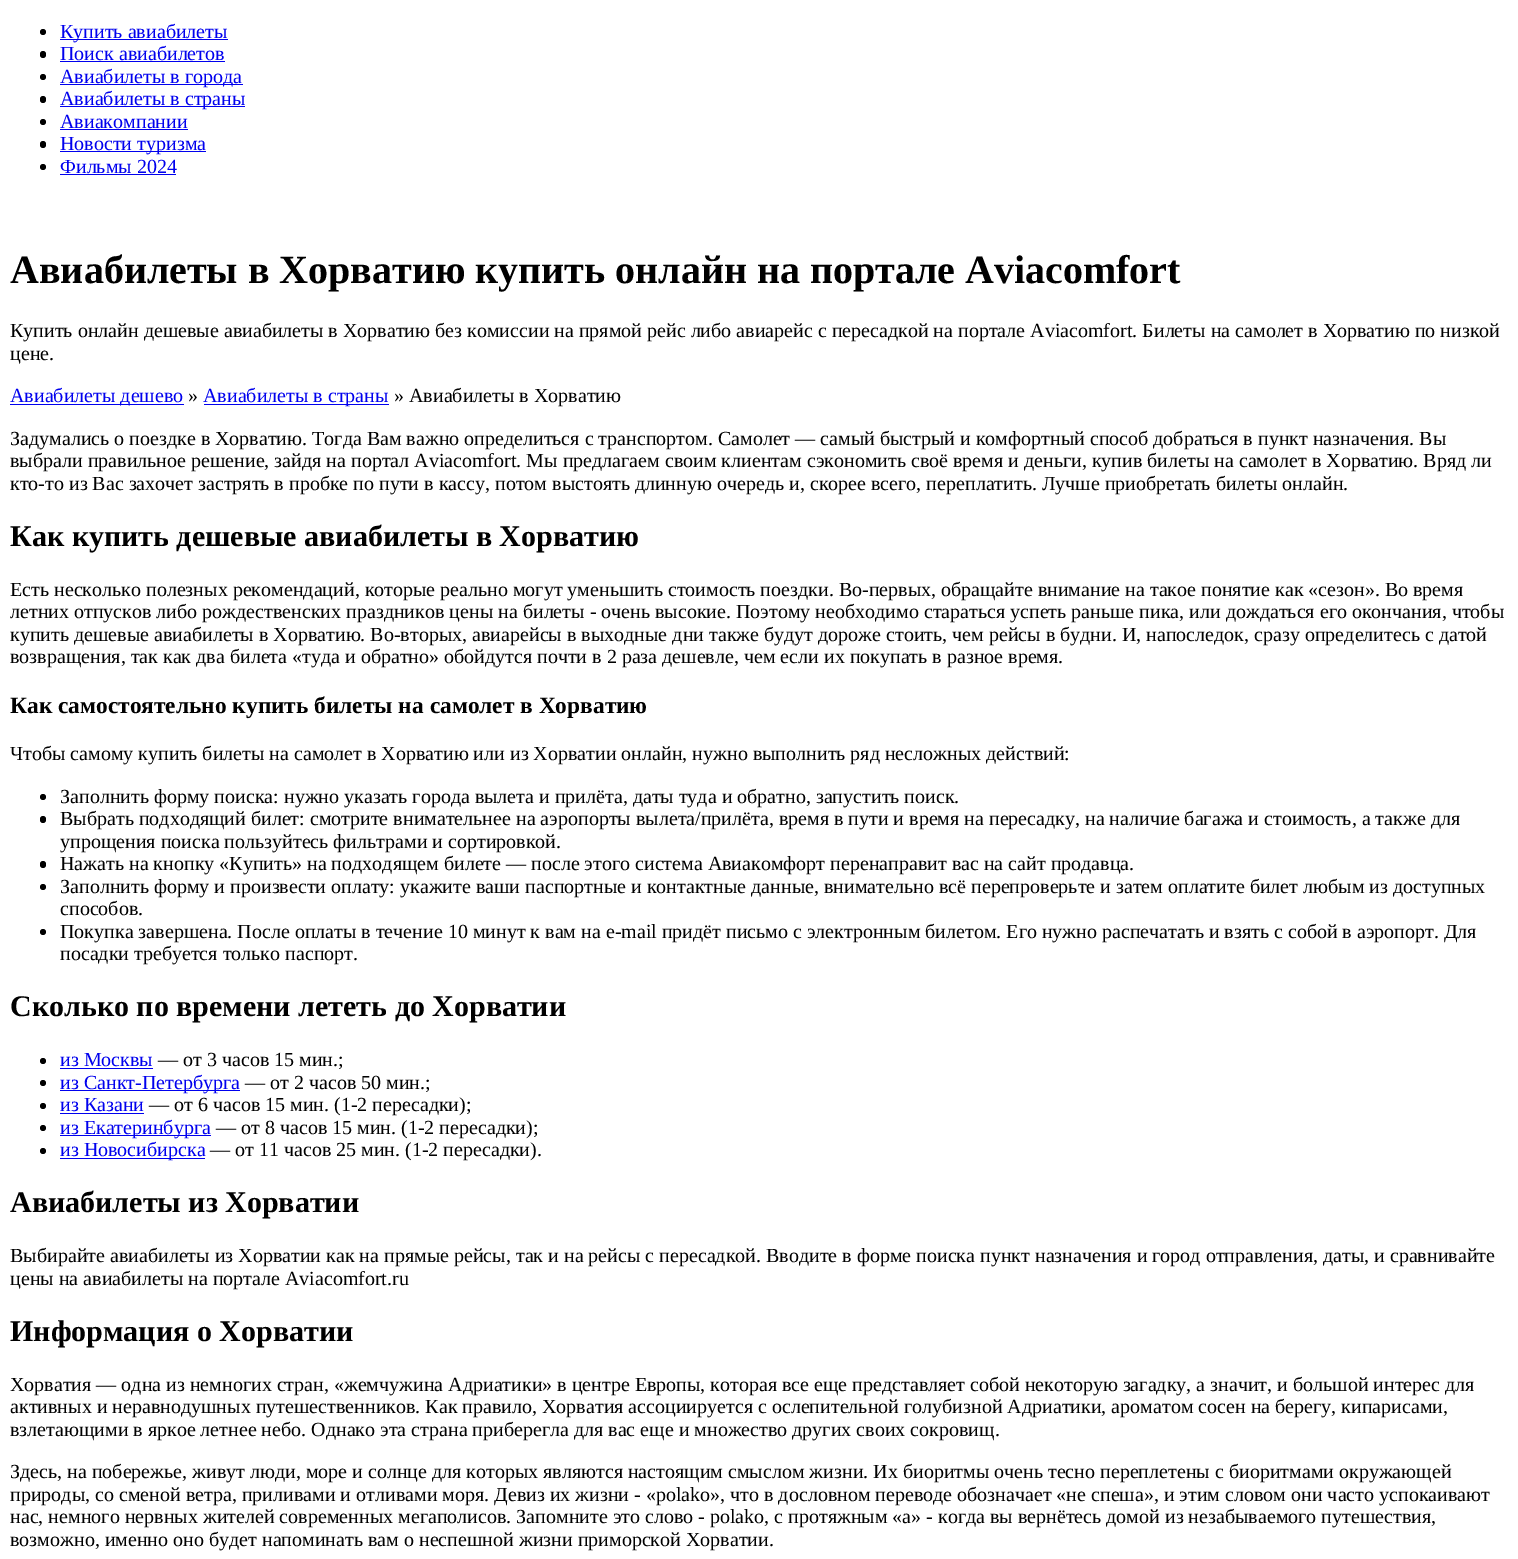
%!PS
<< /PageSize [1518 1559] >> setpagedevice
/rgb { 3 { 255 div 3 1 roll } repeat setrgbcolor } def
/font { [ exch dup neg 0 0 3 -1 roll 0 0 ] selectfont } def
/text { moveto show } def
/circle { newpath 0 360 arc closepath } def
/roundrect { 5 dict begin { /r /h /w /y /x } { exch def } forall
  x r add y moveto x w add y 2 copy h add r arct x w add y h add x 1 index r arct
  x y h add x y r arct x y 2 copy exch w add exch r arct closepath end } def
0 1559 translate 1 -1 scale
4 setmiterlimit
255 255 255 rgb
0 0 1518 1559 rectfill
0 0 0 rgb
43 32 3 circle fill
0 0 238 rgb
60 39 168 1 rectfill
0 0 0 rgb
40 51 6 7 3 roundrect fill
0 0 238 rgb
60 61 165 1 rectfill
0 0 0 rgb
43 77 3 circle fill
0 0 238 rgb
60 84 183 1 rectfill
0 0 0 rgb
40 96 6 7 3 roundrect fill
0 0 238 rgb
60 106 185 1 rectfill
0 0 0 rgb
43 122 3 circle fill
0 0 238 rgb
60 129 128 1 rectfill
0 0 0 rgb
40 141 6 7 3 roundrect fill
0 0 238 rgb
60 151 146 1 rectfill
0 0 0 rgb
43 167 3 circle fill
0 0 238 rgb
60 174 116 1 rectfill
10 404 174 1 rectfill
204 404 185 1 rectfill
0 0 0 rgb
43 797 3 circle fill
40 816 6 7 3 roundrect fill
40 861 6 7 3 roundrect fill
43 887 3 circle fill
43 932 3 circle fill
43 1061 3 circle fill
0 0 238 rgb
60 1068 93 1 rectfill
0 0 0 rgb
43 1083 3 circle fill
0 0 238 rgb
60 1090 180 1 rectfill
0 0 0 rgb
43 1106 3 circle fill
0 0 238 rgb
60 1113 84 1 rectfill
0 0 0 rgb
43 1128 3 circle fill
0 0 238 rgb
60 1135 151 1 rectfill
0 0 0 rgb
43 1151 3 circle fill
0 0 238 rgb
60 1158 145 1 rectfill
/LiberationSerif-Regular 20 font
(Купить авиабилеты) 60 38 text
(Поиск авиабилетов) 60 60 text
(Авиабилеты в города) 60 83 text
(Авиабилеты в страны) 60 105 text
(Авиакомпании) 60 128 text
(Новости туризма) 60 150 text
(Фильмы 2024) 60 173 text
/LiberationSerif-Bold 40 font
0 0 0 rgb
(Авиабилеты в Хорватию купить онлайн на портале Aviacomfort) 10 283 text
/LiberationSerif-Regular 20 font
(Купить онлайн дешевые авиабилеты в Хорватию без комиссии на прямой рейс либо авиарейс с пересадкой на портале Aviacomfort. Билеты на самолет в Хорватию по низкой) 10 337 text
(цене.) 10 360 text
0 0 238 rgb
(Авиабилеты дешево) 10 402 text
0 0 0 rgb
(») 188 402 text
0 0 238 rgb
(Авиабилеты в страны) 203 402 text
0 0 0 rgb
(» Авиабилеты в Хорватию) 394 402 text
(Задумались о поездке в Хорватию. Тогда Вам важно определиться с транспортом. Самолет — самый быстрый и комфортный способ добраться в пункт назначения. Вы) 10 445 text
(выбрали правильное решение, зайдя на портал Aviacomfort. Мы предлагаем своим клиентам сэкономить своё время и деньги, купив билеты на самолет в Хорватию. Вряд ли) 10 467 text
(кто-то из Вас захочет застрять в пробке по пути в кассу, потом выстоять длинную очередь и, скорее всего, переплатить. Лучше приобретать билеты онлайн.) 10 490 text
/LiberationSerif-Bold 30 font
(Как купить дешевые авиабилеты в Хорватию) 10 546 text
/LiberationSerif-Regular 20 font
(Есть несколько полезных рекомендаций, которые реально могут уменьшить стоимость поездки. Во-первых, обращайте внимание на такое понятие как «сезон». Во время) 10 596 text
(летних отпусков либо рождественских праздников цены на билеты - очень высокие. Поэтому необходимо стараться успеть раньше пика, или дождаться его окончания, чтобы) 10 618 text
(купить дешевые авиабилеты в Хорватию. Во-вторых, авиарейсы в выходные дни также будут дороже стоить, чем рейсы в будни. И, напоследок, сразу определитесь с датой) 10 641 text
(возвращения, так как два билета «туда и обратно» обойдутся почти в 2 раза дешевле, чем если их покупать в разное время.) 10 663 text
/LiberationSerif-Bold 23.4 font
(Как самостоятельно купить билеты на самолет в Хорватию) 10 713 text
/LiberationSerif-Regular 20 font
(Чтобы самому купить билеты на самолет в Хорватию или из Хорватии онлайн, нужно выполнить ряд несложных действий:) 10 760 text
(Заполнить форму поиска: нужно указать города вылета и прилёта, даты туда и обратно, запустить поиск.) 60 803 text
(Выбрать подходящий билет: смотрите внимательнее на аэропорты вылета/прилёта, время в пути и время на пересадку, на наличие багажа и стоимость, а также для) 60 825 text
(упрощения поиска пользуйтесь фильтрами и сортировкой.) 60 848 text
(Нажать на кнопку «Купить» на подходящем билете — после этого система Авиакомфорт перенаправит вас на сайт продавца.) 60 870 text
(Заполнить форму и произвести оплату: укажите ваши паспортные и контактные данные, внимательно всё перепроверьте и затем оплатите билет любым из доступных) 60 893 text
(способов.) 60 915 text
(Покупка завершена. После оплаты в течение 10 минут к вам на e-mail придёт письмо с электронным билетом. Его нужно распечатать и взять с собой в аэропорт. Для) 60 938 text
(посадки требуется только паспорт.) 60 960 text
/LiberationSerif-Bold 30 font
(Сколько по времени лететь до Хорватии) 10 1016 text
/LiberationSerif-Regular 20 font
0 0 238 rgb
(из Москвы) 60 1066 text
0 0 0 rgb
(— от 3 часов 15 мин.;) 158 1066 text
0 0 238 rgb
(из Санкт-Петербурга) 60 1089 text
0 0 0 rgb
(— от 2 часов 50 мин.;) 245 1089 text
0 0 238 rgb
(из Казани) 60 1111 text
0 0 0 rgb
(— от 6 часов 15 мин. \(1-2 пересадки\);) 149 1111 text
0 0 238 rgb
(из Екатеринбурга) 60 1134 text
0 0 0 rgb
(— от 8 часов 15 мин. \(1-2 пересадки\);) 216 1134 text
0 0 238 rgb
(из Новосибирска) 60 1156 text
0 0 0 rgb
(— от 11 часов 25 мин. \(1-2 пересадки\).) 210 1156 text
/LiberationSerif-Bold 30 font
(Авиабилеты из Хорватии) 10 1212 text
/LiberationSerif-Regular 20 font
(Выбирайте авиабилеты из Хорватии как на прямые рейсы, так и на рейсы с пересадкой. Вводите в форме поиска пункт назначения и город отправления, даты, и сравнивайте) 10 1262 text
(цены на авиабилеты на портале Aviacomfort.ru) 10 1285 text
/LiberationSerif-Bold 30 font
(Информация о Хорватии) 10 1341 text
/LiberationSerif-Regular 20 font
(Хорватия — одна из немногих стран, «жемчужина Адриатики» в центре Европы, которая все еще представляет собой некоторую загадку, а значит, и большой интерес для) 10 1391 text
(активных и неравнодушных путешественников. Как правило, Хорватия ассоциируется с ослепительной голубизной Адриатики, ароматом сосен на берегу, кипарисами,) 10 1413 text
(взлетающими в яркое летнее небо. Однако эта страна приберегла для вас еще и множество других своих сокровищ.) 10 1436 text
(Здесь, на побережье, живут люди, море и солнце для которых являются настоящим смыслом жизни. Их биоритмы очень тесно переплетены с биоритмами окружающей) 10 1478 text
(природы, со сменой ветра, приливами и отливами моря. Девиз их жизни - «polako», что в дословном переводе обозначает «не спеша», и этим словом они часто успокаивают) 10 1501 text
(нас, немного нервных жителей современных мегаполисов. Запомните это слово - polako, с протяжным «а» - когда вы вернётесь домой из незабываемого путешествия,) 10 1523 text
(возможно, именно оно будет напоминать вам о неспешной жизни приморской Хорватии.) 10 1546 text
showpage
